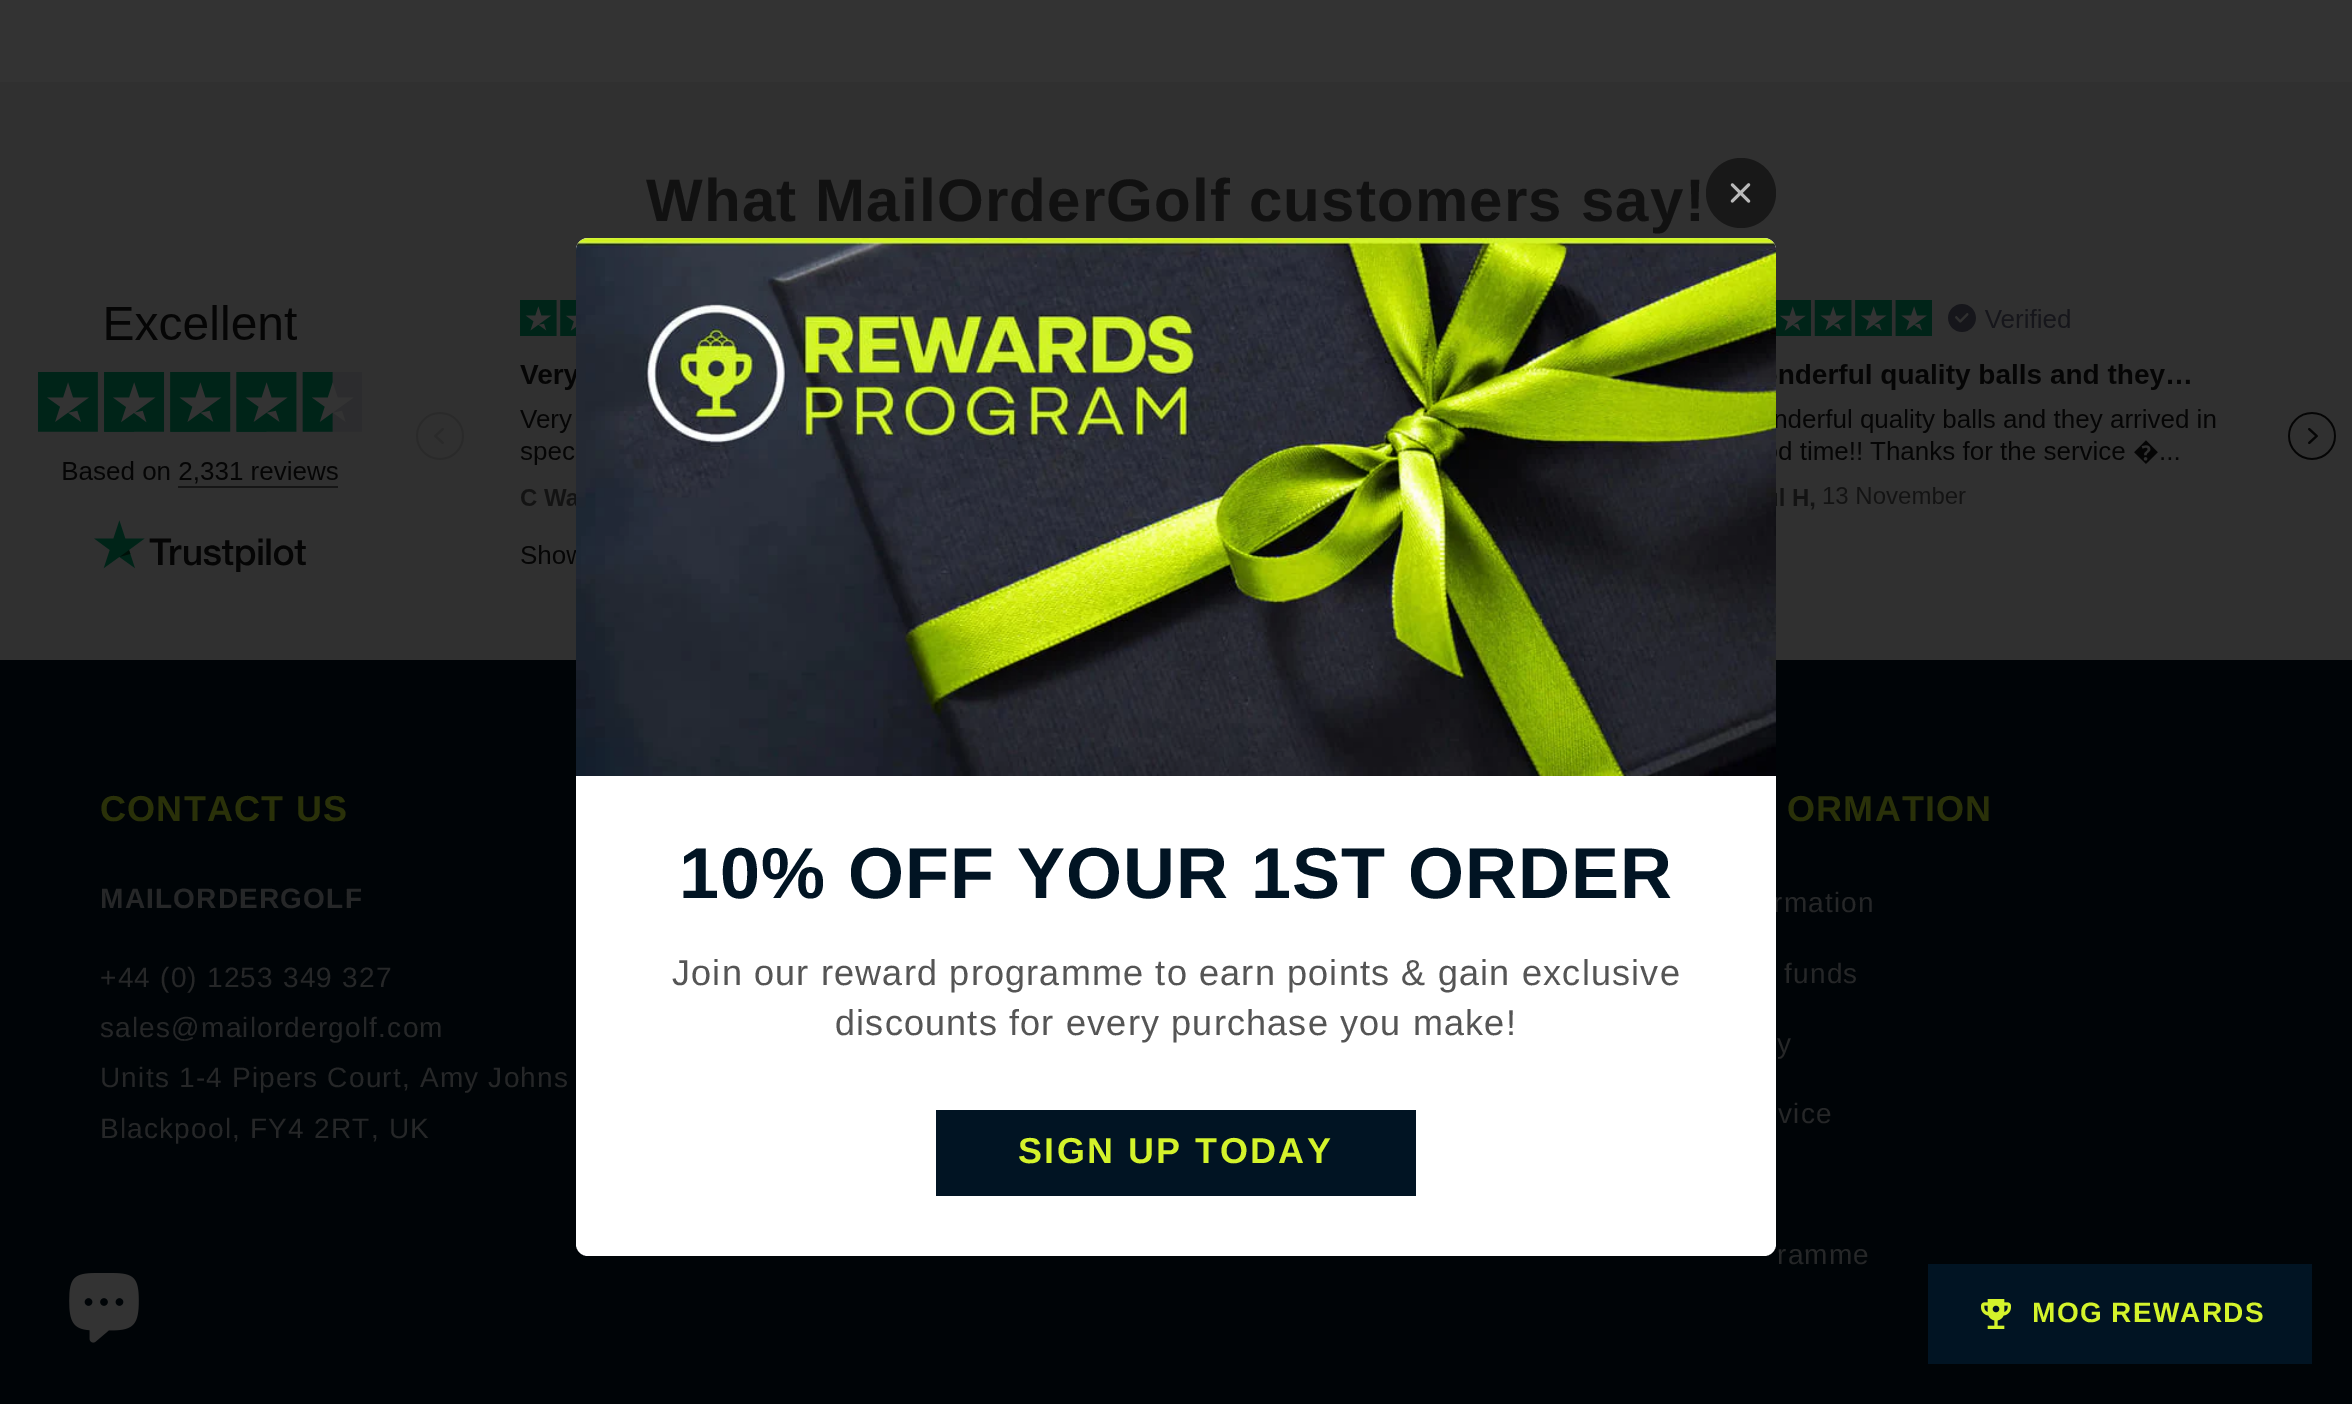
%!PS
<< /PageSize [2352 1404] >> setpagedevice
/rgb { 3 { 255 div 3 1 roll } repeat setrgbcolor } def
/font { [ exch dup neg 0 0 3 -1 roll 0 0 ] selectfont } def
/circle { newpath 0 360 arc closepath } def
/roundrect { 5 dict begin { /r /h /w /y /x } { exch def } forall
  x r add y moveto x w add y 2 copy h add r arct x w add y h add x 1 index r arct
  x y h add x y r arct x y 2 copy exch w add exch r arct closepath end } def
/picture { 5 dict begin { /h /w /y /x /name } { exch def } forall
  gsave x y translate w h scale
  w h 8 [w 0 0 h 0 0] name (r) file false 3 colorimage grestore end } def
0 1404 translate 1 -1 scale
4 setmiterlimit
51 51 51 rgb
0 0 2352 1404 rectfill
48 48 48 rgb
0 82 2352 578 rectfill
(img_01.rgb) 38 300 2298 272 picture
0 4 7 rgb
0 660 2352 744 rectfill
24 24 24 rgb
1741 193 35 circle fill
(img_02.rgb) 1730 183 21 20 picture
(img_04.rgb) 69 1273 70 70 picture
1 20 35 rgb
1928 1264 384 100 rectfill
(img_05.rgb) 1981 1299 30 30 picture
/LiberationSans-Bold 60 font
17 17 17 rgb
646 221 moveto 1.2 0 (What MailOrderGolf customers say!) ashow
/LiberationSans-Bold 36 font
42 49 9 rgb
100 821 moveto 1.2 0 (CONTACT US) ashow
/LiberationSans-Bold 28 font
38 39 40 rgb
100 908 moveto 1.2 0 (MAILORDERGOLF) ashow
/LiberationSans-Regular 28 font
100 987 moveto 1.2 0 (+44 \(0\) 1253 349 327) ashow
100 1037 moveto 1.2 0 (sales@mailordergolf.com) ashow
100 1087 moveto 1.2 0 (Units 1-4 Pipers Court, Amy Johns) ashow
100 1138 moveto 1.2 0 (Blackpool, FY4 2RT, UK) ashow
/LiberationSans-Bold 36 font
42 49 9 rgb
1787 821 moveto 1.2 0 (ORMATION) ashow
/LiberationSans-Regular 28 font
38 39 40 rgb
1773 912 moveto 1.2 0 (rmation) ashow
1784 983 moveto 1.2 0 (funds) ashow
1777 1053 moveto 1.2 0 (y) ashow
1778 1123 moveto 1.2 0 (vice) ashow
1777 1264 moveto 1.2 0 (ramme) ashow
255 255 255 rgb
576 238 1200 1018 12 roundrect fill
(img_03.rgb) 576 238 1200 538 picture
/LiberationSans-Bold 72 font
1 20 35 rgb
679 898 moveto 1.2 0 (10% OFF YOUR 1ST ORDER) ashow
/LiberationSans-Regular 36 font
85 85 85 rgb
672 985 moveto 1.2 0 (Join our reward programme to earn points & gain exclusive) ashow
835 1035 moveto 1.2 0 (discounts for every purchase you make!) ashow
1 20 35 rgb
936 1110 480 86 rectfill
/LiberationSans-Bold 36 font
212 243 43 rgb
1018 1163 moveto 2.4 0 (SIGN UP TODAY) ashow
/LiberationSans-Bold 28 font
2032 1322 moveto 1.2 0 (MOG REWARDS) ashow
showpage
